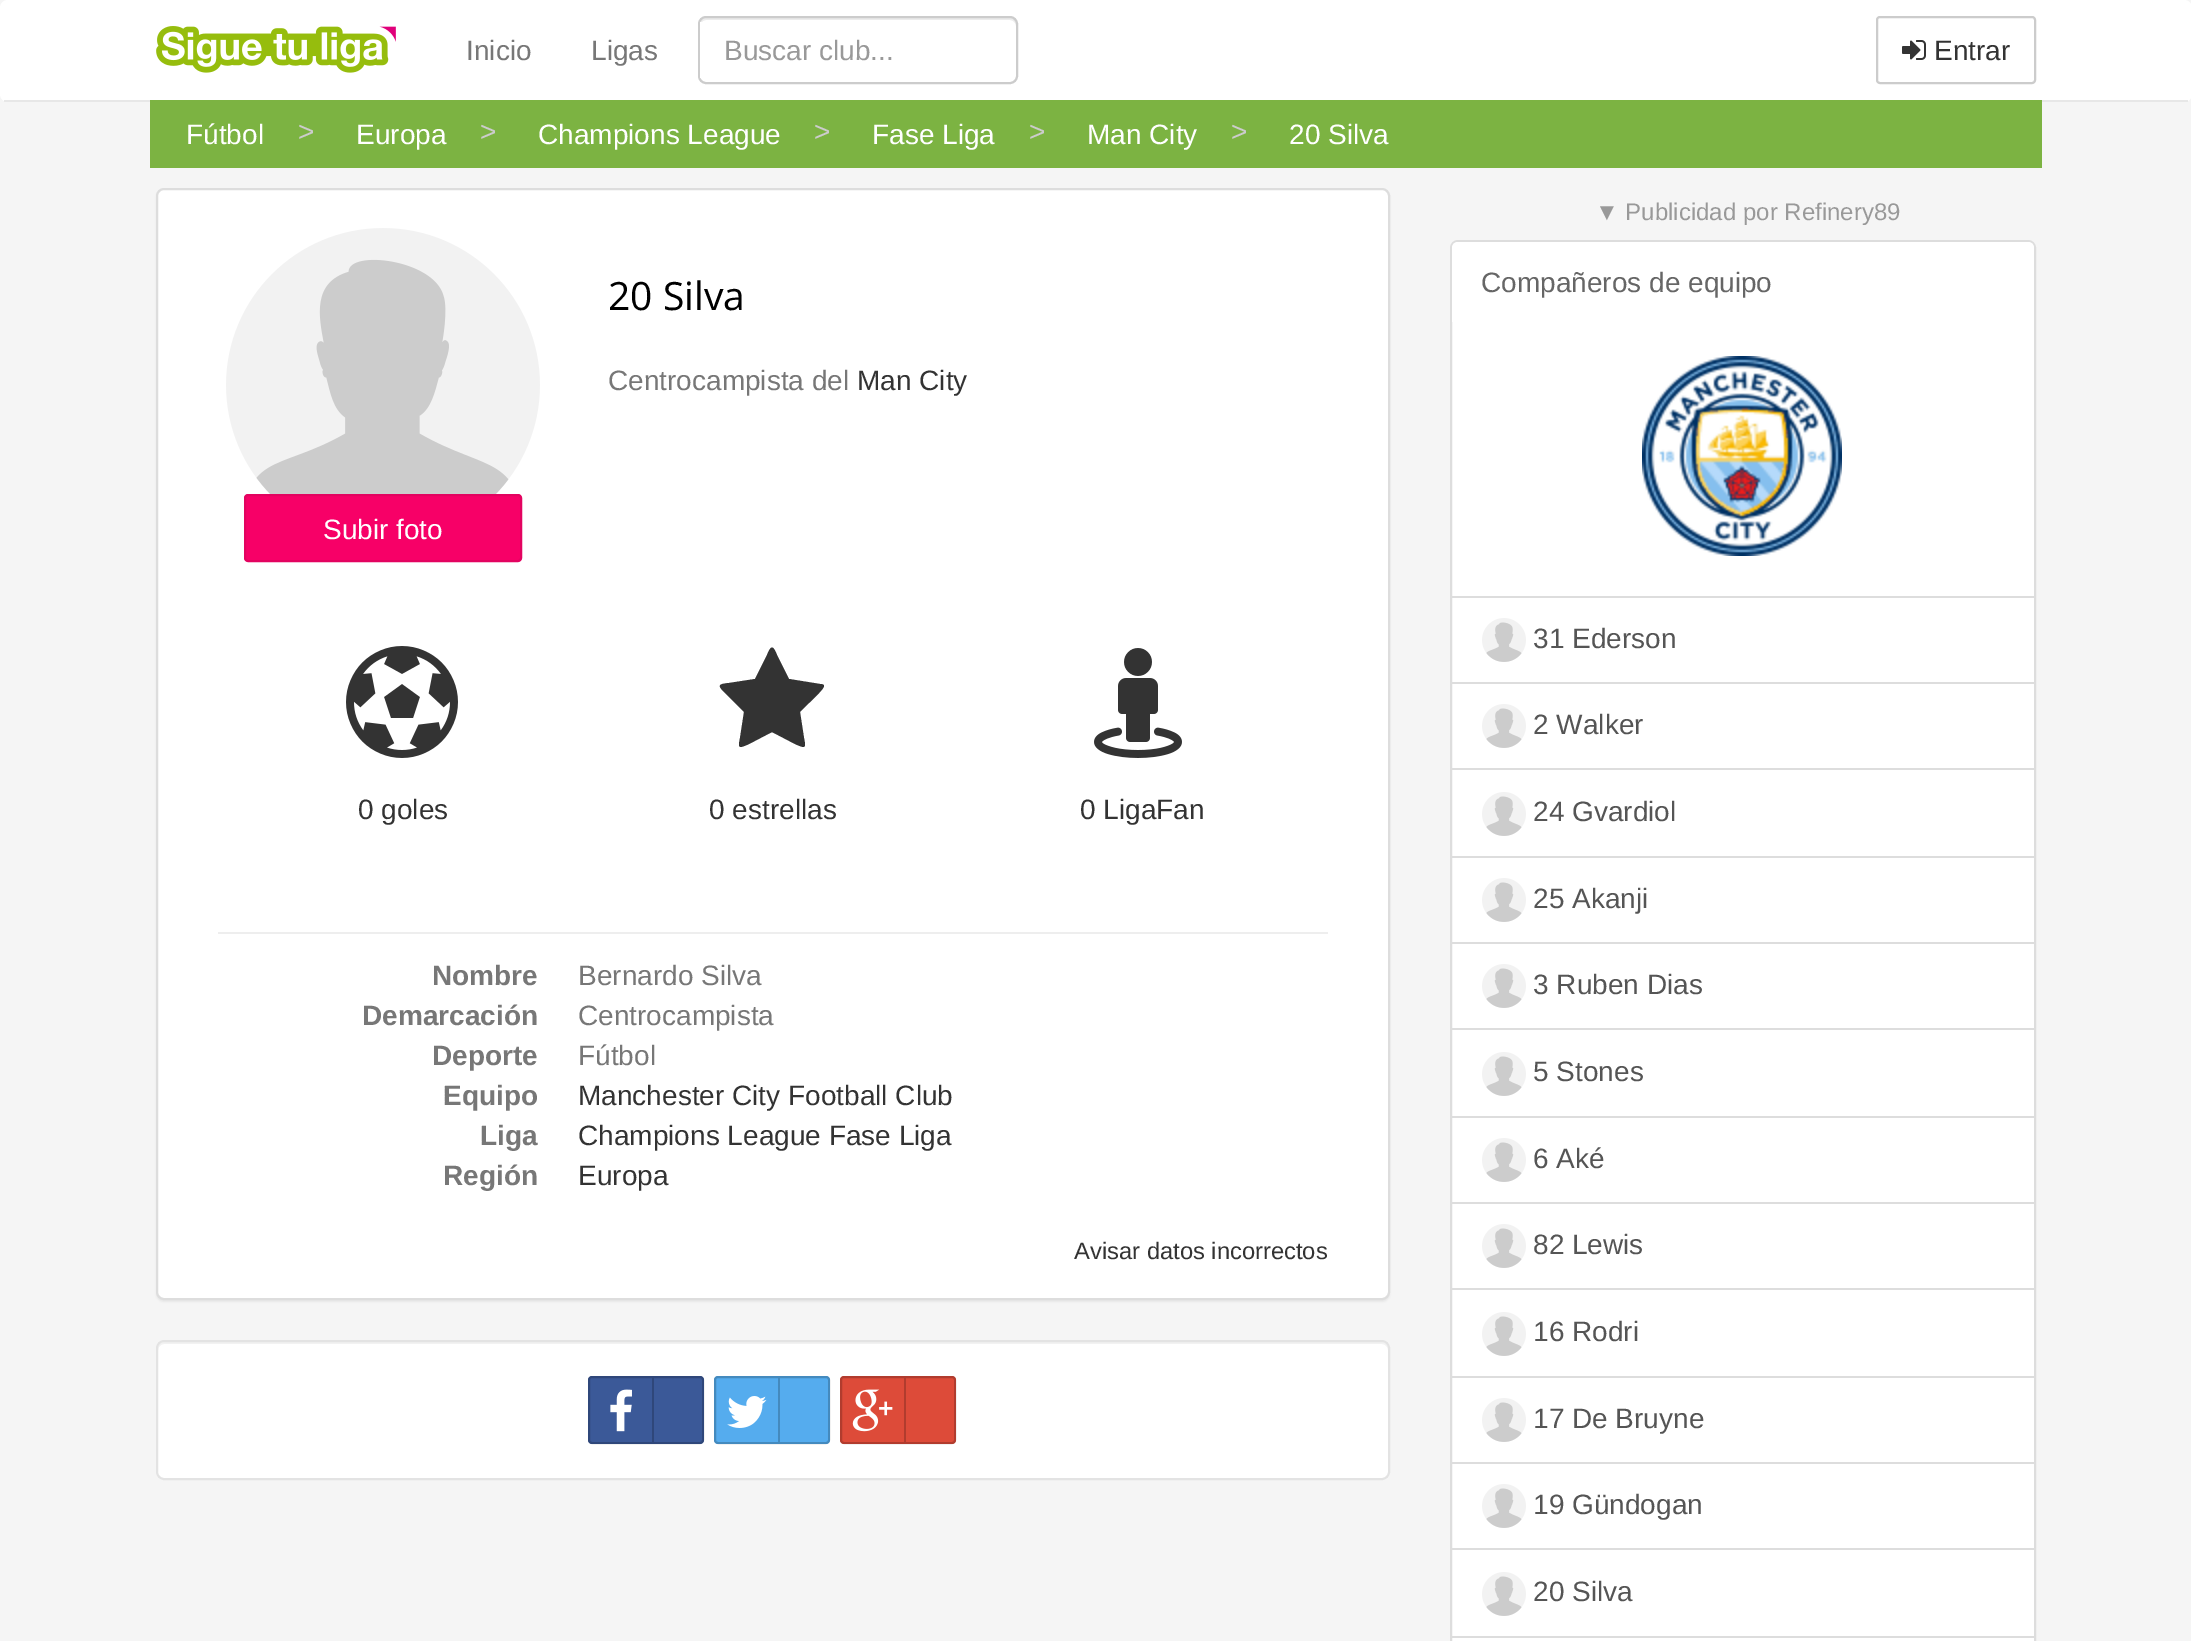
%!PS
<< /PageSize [2191 1641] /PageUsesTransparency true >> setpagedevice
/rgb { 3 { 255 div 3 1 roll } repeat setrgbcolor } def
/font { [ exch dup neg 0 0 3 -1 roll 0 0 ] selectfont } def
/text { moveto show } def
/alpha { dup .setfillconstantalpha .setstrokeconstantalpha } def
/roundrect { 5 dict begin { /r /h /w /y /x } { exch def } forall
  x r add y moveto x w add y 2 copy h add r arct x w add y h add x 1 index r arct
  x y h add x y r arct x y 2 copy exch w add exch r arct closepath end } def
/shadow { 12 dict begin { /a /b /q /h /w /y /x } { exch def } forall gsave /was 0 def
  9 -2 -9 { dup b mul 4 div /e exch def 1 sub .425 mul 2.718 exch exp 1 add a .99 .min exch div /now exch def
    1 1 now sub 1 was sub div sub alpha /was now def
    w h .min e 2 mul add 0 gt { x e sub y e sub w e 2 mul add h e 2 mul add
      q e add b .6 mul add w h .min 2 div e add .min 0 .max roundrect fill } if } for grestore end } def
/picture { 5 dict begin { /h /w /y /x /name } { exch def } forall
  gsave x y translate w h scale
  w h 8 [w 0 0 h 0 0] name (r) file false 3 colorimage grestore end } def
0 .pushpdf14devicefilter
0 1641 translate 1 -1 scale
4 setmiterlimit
245 245 245 rgb
0 0 2191 1641 rectfill
255 255 255 rgb
0 0 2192 102 8 roundrect fill
231 231 231 rgb
4 100 2184 2 rectfill
(img_01.rgb) 156 26 240 47 picture
236 236 236 rgb
706 20 moveto 304 0 rlineto 3 0 6 3 6 6 rcurveto 0 -4 -1 -8 -6 -8 rcurveto -305 0 rlineto -4 1 -5 5 -5 8 rcurveto 0 -3 3 -6 6 -6 rcurveto closepath fill
204 204 204 rgb
2 setlinewidth
699 17 318 66 7 roundrect stroke
255 255 255 rgb
700 22 2 56 rectfill
204 204 204 rgb
1877 17 158 66 3 roundrect stroke
(img_02.rgb) 1902 40 24 20 picture
124 179 66 rgb
150 100 1892 68 rectfill
0 0 0 rgb
156 190 1234 1112 8 1 0.05 shadow
255 255 255 rgb
157 189 1232 1110 7 roundrect gsave fill grestore
221 221 221 rgb
stroke
(img_03.rgb) 226 228 314 266 picture
247 0 103 rgb
245 495 276 66 3 roundrect gsave fill grestore
227 3 96 rgb
stroke
(img_04.rgb) 346 646 112 112 picture
51 51 51 rgb
824 686 moveto 0 4 -21 22 -24 26 rcurveto 4 26 rlineto 2 10 2 11 -9 6 rcurveto -23 -12 rlineto -23 12 rlineto -11 5 -11 4 -9 -6 rcurveto 4 -26 rlineto -19 -19 rlineto -7 -7 -8 -9 4 -10 rcurveto 26 -4 rlineto 12 -24 rlineto 4 -10 6 -10 10 0 rcurveto 12 24 rlineto 31 5 rlineto 3 0 4 1 4 2 rcurveto closepath fill
(img_05.rgb) 1094 648 88 110 picture
238 238 238 rgb
218 932 1110 2 rectfill
255 255 255 rgb
156 1340 1234 140 8 roundrect fill
242 242 242 rgb
164 1344 moveto 1218 0 rlineto 3 0 6 3 6 6 rcurveto 0 -2 rlineto 0 -3 -3 -6 -6 -6 rcurveto -1218 0 rlineto -3 0 -6 3 -6 6 rcurveto 0 2 rlineto 0 -3 3 -6 6 -6 rcurveto closepath fill
227 227 227 rgb
157 1341 1232 138 7 roundrect stroke
59 89 152 rgb
588 1376 116 68 4 roundrect fill
0.2 alpha
0 0 0 rgb
589 1377 114 66 3 roundrect stroke
1 alpha
47 71 122 rgb
652 1378 2 64 rectfill
(img_06.rgb) 610 1389 22 43 picture
85 172 238 rgb
714 1376 116 68 4 roundrect fill
0.2 alpha
0 0 0 rgb
715 1377 114 66 3 roundrect stroke
1 alpha
68 138 190 rgb
778 1378 2 64 rectfill
(img_07.rgb) 727 1396 40 32 picture
221 75 57 rgb
840 1376 116 68 4 roundrect fill
0.2 alpha
0 0 0 rgb
841 1377 114 66 3 roundrect stroke
1 alpha
177 60 46 rgb
904 1378 2 64 rectfill
(img_08.rgb) 852 1389 41 43 picture
255 255 255 rgb
1451 241 584 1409 7 roundrect gsave fill grestore
221 221 221 rgb
stroke
255 255 255 rgb
1458 242 moveto 570 0 rlineto 3.5 0 6 2.5 6 6 rcurveto 0 74 rlineto -582 0 rlineto 0 -74 rlineto 0 -3.5 2.5 -6 6 -6 rcurveto closepath fill
(img_09.rgb) 1642 356 200 200 picture
221 221 221 rgb
1452 596 582 2 rectfill
1452 682 582 2 rectfill
(img_10.rgb) 1482 618 44 44 picture
1452 768 582 2 rectfill
(img_10.rgb) 1482 704 44 44 picture
1452 856 582 2 rectfill
(img_10.rgb) 1482 792 44 44 picture
1452 942 582 2 rectfill
(img_10.rgb) 1482 878 44 44 picture
1452 1028 582 2 rectfill
(img_10.rgb) 1482 964 44 44 picture
1452 1116 582 2 rectfill
(img_10.rgb) 1482 1052 44 44 picture
1452 1202 582 2 rectfill
(img_10.rgb) 1482 1138 44 44 picture
1452 1288 582 2 rectfill
(img_10.rgb) 1482 1224 44 44 picture
1452 1376 582 2 rectfill
(img_10.rgb) 1482 1312 44 44 picture
1452 1462 582 2 rectfill
(img_10.rgb) 1482 1398 44 44 picture
1452 1548 582 2 rectfill
(img_10.rgb) 1482 1484 44 44 picture
1452 1636 582 2 rectfill
(img_10.rgb) 1482 1572 44 44 picture
/LiberationSans-Regular 28 font
119 119 119 rgb
(Inicio) 466 60 text
(Ligas) 591 60 text
153 153 153 rgb
(Buscar club...) 724 60 text
51 51 51 rgb
(Entrar) 1934 60 text
255 255 255 rgb
(Fútbol) 186 144 text
204 204 204 rgb
(>) 298 141 text
255 255 255 rgb
(Europa) 356 144 text
204 204 204 rgb
(>) 480 141 text
255 255 255 rgb
(Champions League) 538 144 text
204 204 204 rgb
(>) 814 141 text
255 255 255 rgb
(Fase Liga) 872 144 text
204 204 204 rgb
(>) 1029 141 text
255 255 255 rgb
(Man City) 1087 144 text
204 204 204 rgb
(>) 1231 141 text
255 255 255 rgb
(20 Silva) 1289 144 text
/OpenSans-Regular 39 font
0 0 0 rgb
(20 Silva) 608 310 text
/LiberationSans-Regular 28 font
119 119 119 rgb
(Centrocampista del) 608 390 text
51 51 51 rgb
(Man City) 857 390 text
255 255 255 rgb
(Subir foto) 323 539 text
51 51 51 rgb
(0 goles) 358 819 text
(0 estrellas) 709 819 text
(0 LigaFan) 1080 819 text
/LiberationSans-Bold 28 font
119 119 119 rgb
(Nombre) 432 985 text
/LiberationSans-Regular 28 font
(Bernardo Silva) 578 985 text
/LiberationSans-Bold 28 font
(Demarcación) 362 1025 text
/LiberationSans-Regular 28 font
(Centrocampista) 578 1025 text
/LiberationSans-Bold 28 font
(Deporte) 432 1065 text
/LiberationSans-Regular 28 font
(Fútbol) 578 1065 text
/LiberationSans-Bold 28 font
(Equipo) 443 1105 text
/LiberationSans-Regular 28 font
51 51 51 rgb
(Manchester City Football Club) 578 1105 text
/LiberationSans-Bold 28 font
119 119 119 rgb
(Liga) 480 1145 text
/LiberationSans-Regular 28 font
51 51 51 rgb
(Champions League Fase Liga) 578 1145 text
/LiberationSans-Bold 28 font
119 119 119 rgb
(Región) 443 1185 text
/LiberationSans-Regular 28 font
51 51 51 rgb
(Europa) 578 1185 text
/LiberationSans-Regular 23.75 font
(Avisar datos incorrectos) 1074 1259 text
/LiberationSans-Regular 24 font
153 153 153 rgb
(▼ Publicidad por Refinery89) 1595 220 text
/LiberationSans-Regular 28 font
102 102 102 rgb
(Compañeros de equipo) 1481 292 text
85 85 85 rgb
(31 Ederson) 1533 648 text
(2 Walker) 1533 734 text
(24 Gvardiol) 1533 821 text
(25 Akanji) 1533 908 text
(3 Ruben Dias) 1533 994 text
(5 Stones) 1533 1081 text
(6 Aké) 1533 1168 text
(82 Lewis) 1533 1254 text
(16 Rodri) 1533 1341 text
(17 De Bruyne) 1533 1428 text
(19 Gündogan) 1533 1514 text
(20 Silva) 1533 1601 text
.poppdf14devicefilter showpage
